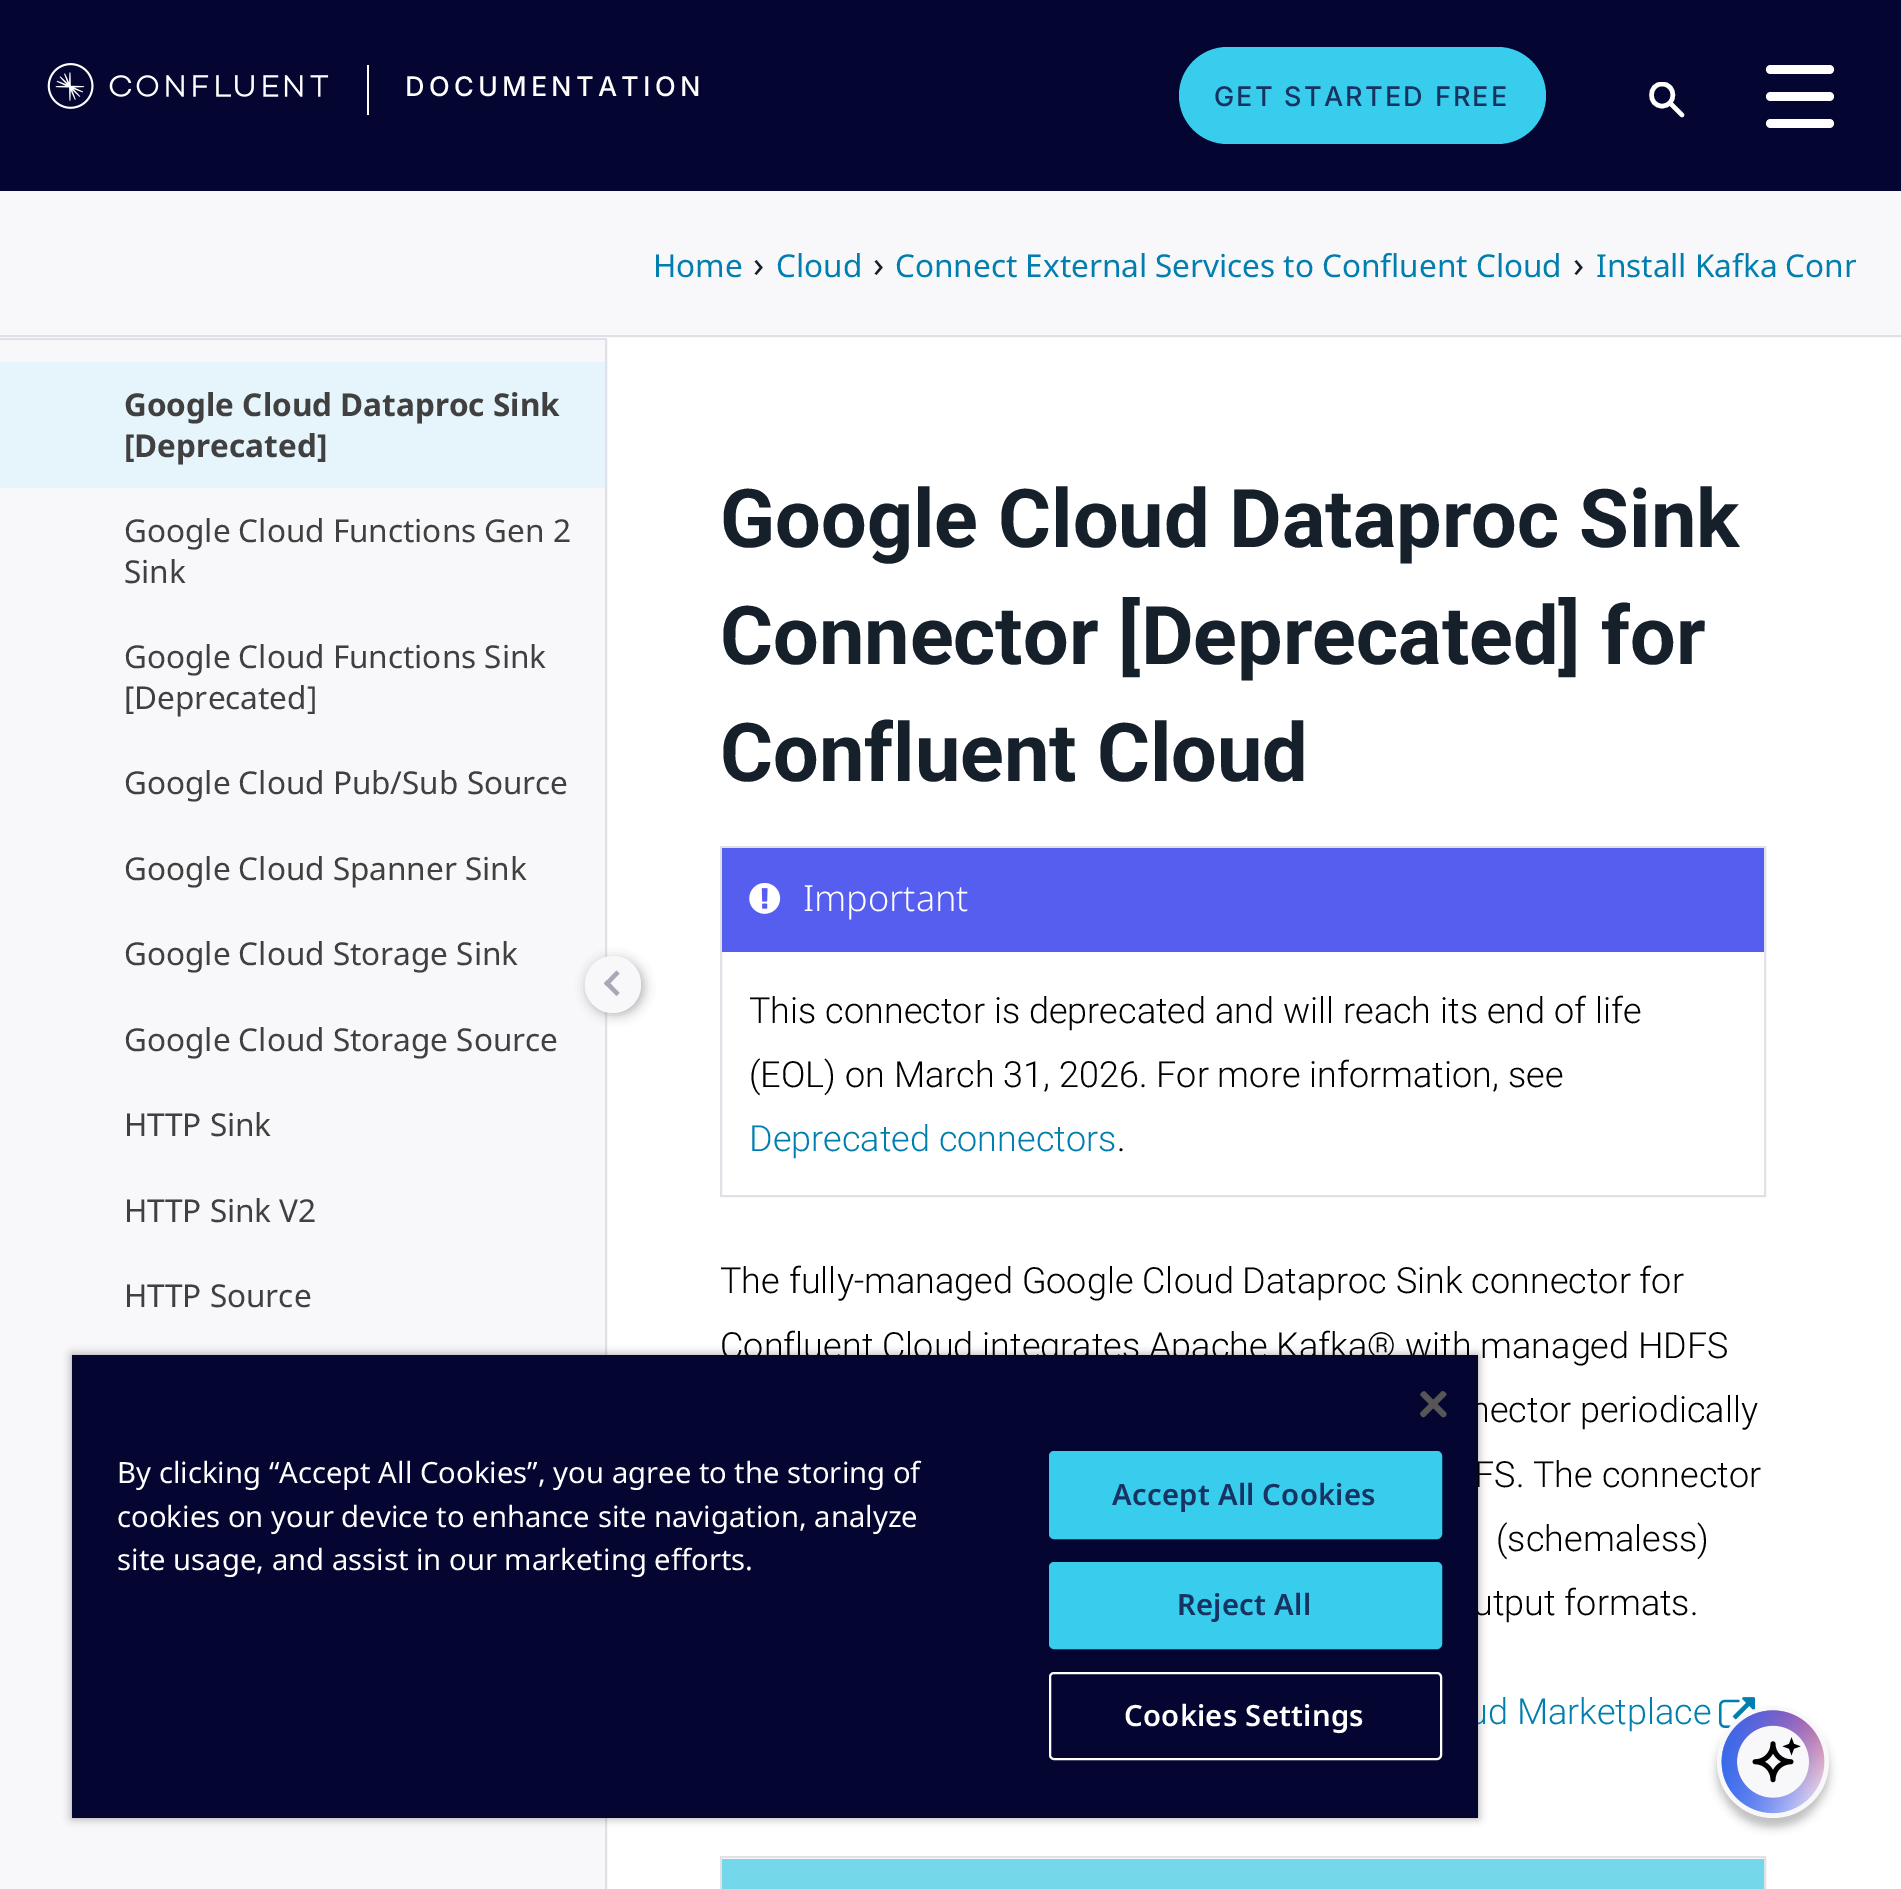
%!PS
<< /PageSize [1901 1889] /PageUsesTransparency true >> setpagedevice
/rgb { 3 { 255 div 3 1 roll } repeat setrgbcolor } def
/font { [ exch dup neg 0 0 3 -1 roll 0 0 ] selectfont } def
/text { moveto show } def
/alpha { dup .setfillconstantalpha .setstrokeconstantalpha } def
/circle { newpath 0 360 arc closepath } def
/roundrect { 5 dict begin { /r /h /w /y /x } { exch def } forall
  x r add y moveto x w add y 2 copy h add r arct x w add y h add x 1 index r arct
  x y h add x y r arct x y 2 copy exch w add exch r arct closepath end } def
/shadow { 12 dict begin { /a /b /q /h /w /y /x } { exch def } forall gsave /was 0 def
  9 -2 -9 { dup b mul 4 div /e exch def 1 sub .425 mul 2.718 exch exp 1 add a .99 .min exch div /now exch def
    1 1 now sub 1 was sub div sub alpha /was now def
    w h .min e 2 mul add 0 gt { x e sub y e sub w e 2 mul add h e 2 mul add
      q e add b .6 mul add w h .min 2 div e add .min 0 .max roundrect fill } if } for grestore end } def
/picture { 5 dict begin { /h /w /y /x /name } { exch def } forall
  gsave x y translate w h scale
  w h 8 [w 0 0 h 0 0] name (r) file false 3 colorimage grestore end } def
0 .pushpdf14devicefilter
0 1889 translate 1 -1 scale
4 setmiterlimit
4 5 49 rgb
0 0 1901 1889 rectfill
(img_01.rgb) 47 63 282 46 picture
255 255 255 rgb
367 65 2 50 rectfill
56 204 237 rgb
1179 47 367 97 48.5 roundrect fill
gsave
1649 82 36 36 rectclip
255 255 255 rgb
4.5 setlinewidth
1 setlinecap
1662 106 moveto 14.5 0 14.5 -22 0 -22 rcurveto -14 0 -14 22 0 22 rcurveto closepath stroke
grestore
255 255 255 rgb
4.5 setlinewidth
1 setlinecap
1670 103 moveto 12 12 rlineto stroke
1766 65 68 9 4.5 roundrect fill
1766 92 68 9 4.5 roundrect fill
1766 119 68 9 4.5 roundrect fill
248 248 250 rgb
0 191 1901 147 rectfill
224 224 231 rgb
0 335 1901 2 rectfill
248 248 250 rgb
0 338 608 1551 rectfill
224 224 231 rgb
605 338 2 1551 rectfill
0 338 605 2 rectfill
229 245 251 rgb
0 362 605 126 rectfill
255 255 255 rgb
608 338 1293 1551 rectfill
224 224 231 rgb
2 setlinewidth
0 setlinecap
721 847 1044 349 rectstroke
86 94 240 rgb
722 848 1042 104 rectfill
(img_02.rgb) 749 883 32 31 picture
(img_03.rgb) 1719 1697 36 31 picture
224 224 231 rgb
721 1857 1044 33 rectstroke
117 216 234 rgb
722 1859 1042 30 rectfill
0 0 0 rgb
1717 1715 112 112 56 4.5 0.25 shadow
248 248 250 rgb
1773 1762 56 circle fill
(img_04.rgb) 1721 1710 104 104 picture
25 25 36 rgb
587 959 57 56 28 5.5 0.32 shadow
248 248 250 rgb
585 956 56 57 28 roundrect fill
168 168 184 rgb
607 980 moveto 12.5 13 rlineto -3 3 rlineto -12.5 -12.5 rlineto closepath fill
616.5 970.5 moveto 3 3 rlineto -12.5 13 rlineto -3 -3 rlineto closepath fill
0 0 0 rgb
72 1355 1406 463 0 4.5 0.35 shadow
/Inter-Medium 27 font
255 255 255 rgb
405 96 moveto 4.25 0 (DOCUMENTATION) ashow
23 51 97 rgb
1214 106 moveto 2.25 0 (GET STARTED FREE) ashow
/NotoSans-Regular 31.5 font
0 126 175 rgb
(Home) 653 277 text
/NotoSans-Regular 36 font
21 32 43 rgb
(›) 753 277 text
/NotoSans-Regular 31.5 font
0 126 175 rgb
(Cloud) 776 277 text
/NotoSans-Regular 36 font
21 32 43 rgb
(›) 873 277 text
/NotoSans-Regular 31.5 font
0 126 175 rgb
(Connect External Services to Confluent Cloud) 895 277 text
/NotoSans-Regular 36 font
21 32 43 rgb
(›) 1573 277 text
gsave
653 236 1203 54 rectclip
/NotoSans-Regular 31.5 font
0 126 175 rgb
(Install Kafka Conn) 1596 277 text
grestore
/NotoSans-Bold 31.5 font
64 64 64 rgb
(Google Cloud Dataproc Sink) 124 416 text
([Deprecated]) 124 457 text
/NotoSans-Regular 31.5 font
(Google Cloud Functions Gen 2) 124 542 text
(Sink) 124 583 text
(Google Cloud Functions Sink) 124 668 text
([Deprecated]) 124 709 text
(Google Cloud Pub/Sub Source) 124 794 text
(Google Cloud Spanner Sink) 124 880 text
(Google Cloud Storage Sink) 124 965 text
(Google Cloud Storage Source) 124 1051 text
(HTTP Sink) 124 1136 text
(HTTP Sink V2) 124 1222 text
(HTTP Source) 124 1307 text
/Roboto-Bold 81 font
21 32 43 rgb
(Google Cloud Dataproc Sink) 720 547 text
(Connector [Deprecated] for) 720 664 text
(Confluent Cloud) 720 781 text
/NotoSans-Light 36 font
255 255 255 rgb
(Important) 803 911 text
/Roboto-Light 36 font
0 0 0 rgb
(This connector is deprecated and will reach its end of life) 749 1023 text
(\(EOL\) on March 31, 2026. For more information, see) 749 1087 text
0 126 175 rgb
(Deprecated connectors) 749 1151 text
0 0 0 rgb
(.) 1117 1151 text
(The fully-managed Google Cloud Dataproc Sink connector for) 720 1293 text
(Confluent Cloud integrates Apache Kafka® with managed HDFS) 720 1358 text
(nector periodically) 1470 1422 text
(FS. The connector) 1474 1487 text
(\(schemaless\)) 1496 1551 text
(utput formats.) 1473 1615 text
0 126 175 rgb
(ud Marketplace) 1468 1724 text
4 5 49 rgb
72 1355 1406 463 rectfill
(img_05.rgb) 1420 1391 27 27 picture
/NotoSans-Regular 29.25 font
255 255 255 rgb
(By clicking “Accept All Cookies”, you agree to the storing of) 117 1483 text
(cookies on your device to enhance site navigation, analyze) 117 1527 text
(site usage, and assist in our marketing efforts.) 117 1570 text
56 204 237 rgb
1050 1452 391 86 4 roundrect gsave fill grestore
stroke
/NotoSans-SemiBold 29.25 font
23 51 97 rgb
1112 1505 moveto 0.25 0 (Accept All Cookies) ashow
56 204 237 rgb
1050 1563 391 85 4 roundrect gsave fill grestore
stroke
23 51 97 rgb
1177 1615 moveto 0.25 0 (Reject All) ashow
255 255 255 rgb
1050 1673 391 86 4 roundrect stroke
1124 1726 moveto 0.25 0 (Cookies Settings) ashow
.poppdf14devicefilter showpage
